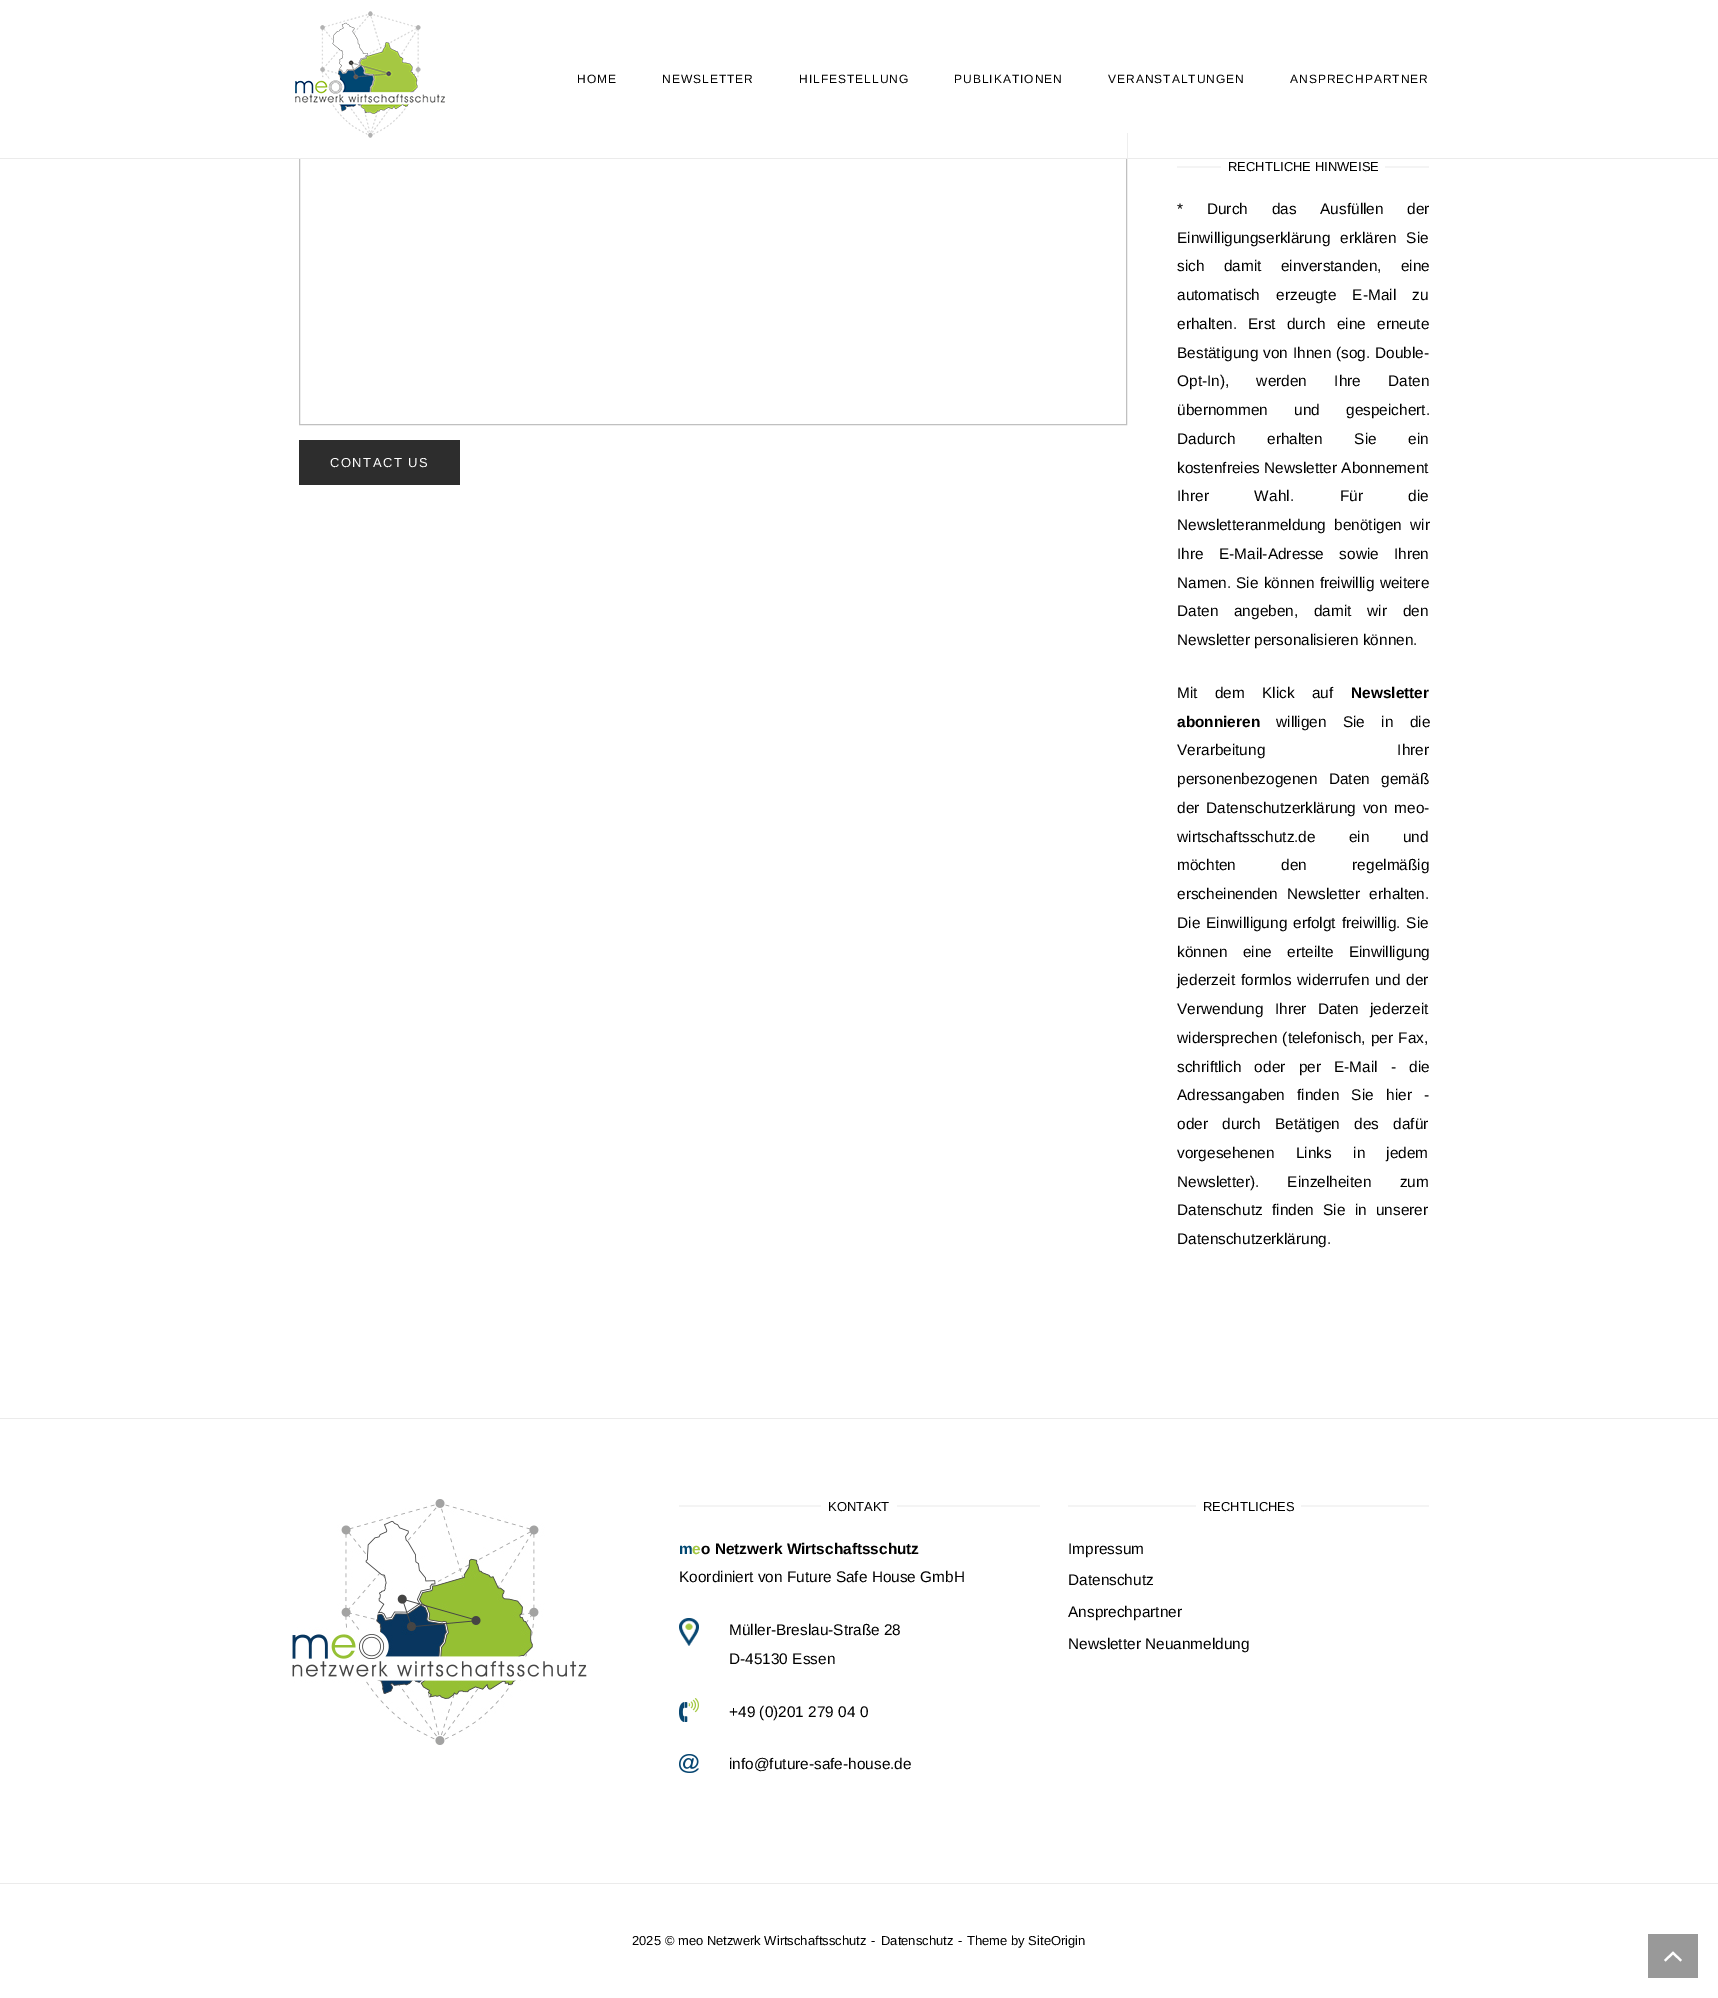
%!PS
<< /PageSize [1718 1998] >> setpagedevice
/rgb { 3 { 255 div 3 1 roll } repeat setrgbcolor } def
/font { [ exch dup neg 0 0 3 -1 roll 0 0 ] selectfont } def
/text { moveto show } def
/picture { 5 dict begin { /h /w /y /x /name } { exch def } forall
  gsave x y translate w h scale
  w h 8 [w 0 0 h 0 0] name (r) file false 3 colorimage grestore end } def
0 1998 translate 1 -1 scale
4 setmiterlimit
255 255 255 rgb
0 0 1718 1998 rectfill
192 192 192 rgb
299.5 133.5 827 291 rectstroke
255 255 255 rgb
299 133 828 25 rectfill
235 235 235 rgb
0 158 1718 1 rectfill
(img_01.rgb) 295 11 150 127 picture
45 45 45 rgb
299 440 161 45 rectfill
244 244 244 rgb
1177 166 44 2 rectfill
1385 166 44 2 rectfill
235 235 235 rgb
0 1418 1718 1 rectfill
(img_02.rgb) 292 1499 295 246 picture
244 244 244 rgb
679 1505 142 2 rectfill
897 1505 143 2 rectfill
(img_03.rgb) 679 1618 20 28 picture
(img_04.rgb) 679 1698 20 24 picture
(img_05.rgb) 679 1754 20 19 picture
1068 1505 128 2 rectfill
1301 1505 128 2 rectfill
235 235 235 rgb
0 1883 1718 1 rectfill
153 153 153 rgb
1648 1934 50 44 rectfill
255 255 255 rgb
1680.5 1961.5 moveto -7.5 -7 rlineto -7.5 7 rlineto -1.5 -1.5 rlineto 9 -8.5 rlineto 9 8.5 rlineto closepath fill
/LiberationSans-Regular 12 font
0 0 0 rgb
577 83 moveto 1 0 (HOME) ashow
662 83 moveto 1 0 (NEWSLETTER) ashow
799 83 moveto 1 0 (HILFESTELLUNG) ashow
954 83 moveto 1 0 (PUBLIKATIONEN) ashow
1108 83 moveto 1 0 (VERANSTALTUNGEN) ashow
1290 83 moveto 1 0 (ANSPRECHPARTNER) ashow
/LiberationSans-Regular 13 font
255 255 255 rgb
330 467 moveto 1.5 0 (CONTACT US) ashow
0 0 0 rgb
(RECHTLICHE HINWEISE) 1228 171 text
/LiberationSans-Regular 15.4 font
1177 214 moveto 19.5 0 32 (* Durch das Ausfüllen der) widthshow
1177 243 moveto 6 0 32 (Einwilligungserklärung erklären Sie) widthshow
1177 271 moveto 15 0 32 (sich damit einverstanden, eine) widthshow
1177 300 moveto 12 0 32 (automatisch erzeugte E-Mail zu) widthshow
1177 329 moveto 7 0 32 (erhalten. Erst durch eine erneute) widthshow
1177 358 moveto 0.5 0 32 (Bestätigung von Ihnen \(sog. Double-) widthshow
1177 386 moveto 23 0 32 (Opt-In\), werden Ihre Daten) widthshow
1177 415 moveto 22 0 32 (übernommen und gespeichert.) widthshow
1177 444 moveto 27.5 0 32 (Dadurch erhalten Sie ein) widthshow
(kostenfreies Newsletter Abonnement) 1177 473 text
1177 501 moveto 41.5 0 32 (Ihrer Wahl. Für die) widthshow
1177 530 moveto 4 0 32 (Newsletteranmeldung benötigen wir) widthshow
1177 559 moveto 11 0 32 (Ihre E-Mail-Adresse sowie Ihren) widthshow
1177 588 moveto 1 0 32 (Namen. Sie können freiwillig weitere) widthshow
1177 616 moveto 11.5 0 32 (Daten angeben, damit wir den) widthshow
(Newsletter personalisieren können.) 1177 645 text
1177 698 moveto 13 0 32 (Mit dem Klick auf) widthshow
/LiberationSans-Bold 15.4 font
(Newsletter) 1351 698 text
(abonnieren) 1177 727 text
/LiberationSans-Regular 15.4 font
1276 727 moveto 12 0 32 (willigen Sie in die) widthshow
1177 755 moveto 128 0 32 (Verarbeitung Ihrer) widthshow
1177 784 moveto 7 0 32 (personenbezogenen Daten gemäß) widthshow
1177 813 moveto 2.5 0 32 (der Datenschutzerklärung von meo-) widthshow
1177 842 moveto 29 0 32 (wirtschaftsschutz.de ein und) widthshow
1177 870 moveto 41 0 32 (möchten den regelmäßig) widthshow
1177 899 moveto 5 0 32 (erscheinenden Newsletter erhalten.) widthshow
1177 928 moveto 1.5 0 32 (Die Einwilligung erfolgt freiwillig. Sie) widthshow
1177 957 moveto 11 0 32 (können eine erteilte Einwilligung) widthshow
1177 985 moveto 1.5 0 32 (jederzeit formlos widerrufen und der) widthshow
1177 1014 moveto 7 0 32 (Verwendung Ihrer Daten jederzeit) widthshow
1177 1043 moveto 1 0 32 (widersprechen \(telefonisch, per Fax,) widthshow
1177 1072 moveto 9 0 32 (schriftlich oder per E-Mail - die) widthshow
1177 1100 moveto 8 0 32 (Adressangaben finden Sie) widthshow
(hier) 1386 1100 text
(-) 1424 1100 text
1177 1129 moveto 10 0 32 (oder durch Betätigen des dafür) widthshow
1177 1158 moveto 17 0 32 (vorgesehenen Links in jedem) widthshow
1177 1187 moveto 24 0 32 (Newsletter\). Einzelheiten zum) widthshow
1177 1215 moveto 5 0 32 (Datenschutz finden Sie in unserer) widthshow
(Datenschutzerklärung.) 1177 1244 text
/LiberationSans-Regular 13 font
(KONTAKT) 828 1511 text
/LiberationSans-Bold 15.4 font
0 71 113 rgb
(m) 679 1554 text
164 199 66 rgb
(e) 692 1554 text
0 0 0 rgb
(o Netzwerk Wirtschaftsschutz) 701 1554 text
/LiberationSans-Regular 15.4 font
(Koordiniert von Future Safe House GmbH) 679 1582 text
(Müller-Breslau-Straße 28) 729 1635 text
(D-45130 Essen) 729 1664 text
(+49 \(0\)201 279 04 0) 729 1717 text
(info@future-safe-house.de) 729 1769 text
/LiberationSans-Regular 13 font
(RECHTLICHES) 1203 1511 text
/LiberationSans-Regular 15.4 font
(Impressum) 1068 1554 text
(Datenschutz) 1068 1585 text
(Ansprechpartner) 1068 1617 text
(Newsletter Neuanmeldung) 1068 1649 text
/LiberationSans-Regular 13 font
(2025 © meo Netzwerk Wirtschaftsschutz) 632 1945 text
(-) 871 1945 text
(Datenschutz) 881 1945 text
(-) 958 1945 text
(Theme by SiteOrigin) 967 1945 text
showpage
